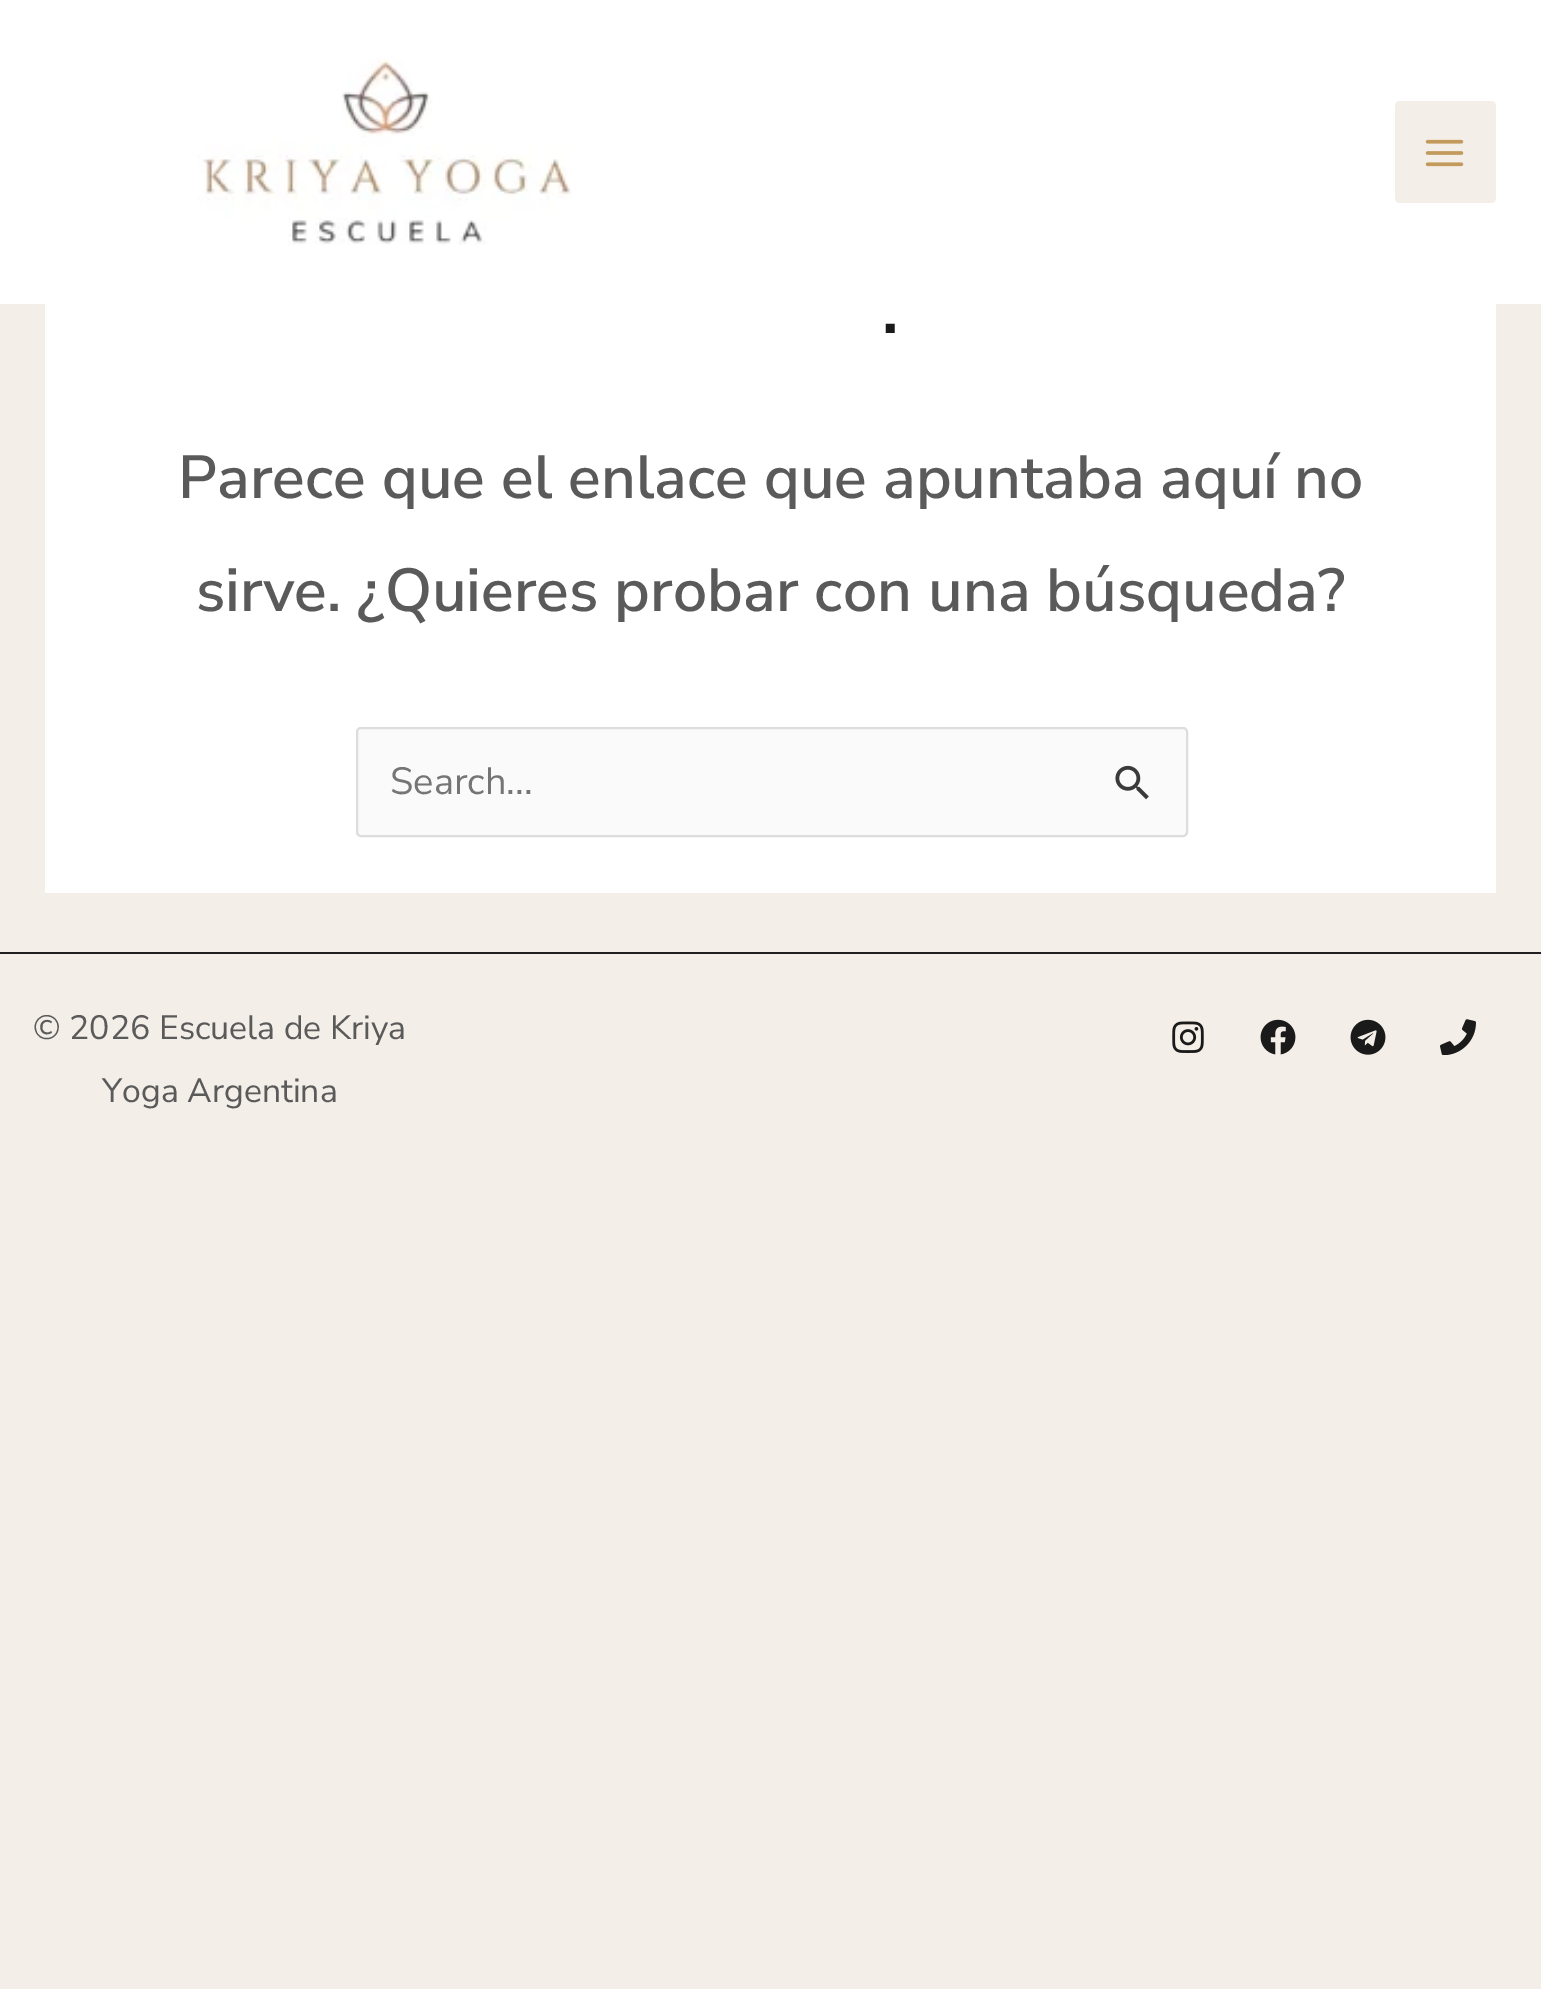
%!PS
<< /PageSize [1541 1989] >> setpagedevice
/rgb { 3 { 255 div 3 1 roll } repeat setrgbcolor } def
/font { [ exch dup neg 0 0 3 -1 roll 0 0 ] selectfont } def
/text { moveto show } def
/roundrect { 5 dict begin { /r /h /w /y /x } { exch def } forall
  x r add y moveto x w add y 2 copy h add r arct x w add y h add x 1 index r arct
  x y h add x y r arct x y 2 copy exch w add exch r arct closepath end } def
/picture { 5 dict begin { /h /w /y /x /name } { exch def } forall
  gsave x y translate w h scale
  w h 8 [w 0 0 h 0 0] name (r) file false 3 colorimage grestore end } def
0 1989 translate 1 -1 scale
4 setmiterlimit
243 238 232 rgb
0 0 1541 1989 rectfill
255 255 255 rgb
0 0 1541 304 rectfill
(img_01.rgb) 198 58 374 187 picture
243 238 232 rgb
1395 101 101 102 5 roundrect fill
(img_02.rgb) 1425 139 39 28 picture
255 255 255 rgb
45 304 1451 589 rectfill
250 250 250 rgb
357 728 830 108 4 roundrect gsave fill grestore
221 221 221 rgb
2 setlinewidth
stroke
(img_03.rgb) 1115 765 34 35 picture
32 32 35 rgb
0 952 1541 2 rectfill
(img_04.rgb) 1172 1021 32 32 picture
(img_05.rgb) 1260 1019 36 36 picture
(img_06.rgb) 1350 1019 36 36 picture
(img_07.rgb) 1440 1019 36 36 picture
/NunitoSans-Regular 90 font
26 26 26 rgb
(.) 880 333 text
/NunitoSans-SemiBold 60.75 font
90 90 90 rgb
(Parece que el enlace que apuntaba aquí no) 178 498 text
(sirve. ¿Quieres probar con una búsqueda?) 196 611 text
/NunitoSans-Regular 38 font
117 117 117 rgb
(Search...) 390 794 text
/NunitoSans-Regular 33.75 font
90 90 90 rgb
(© 2026 Escuela de Kriya) 33 1039 text
(Yoga Argentina) 102 1102 text
showpage
